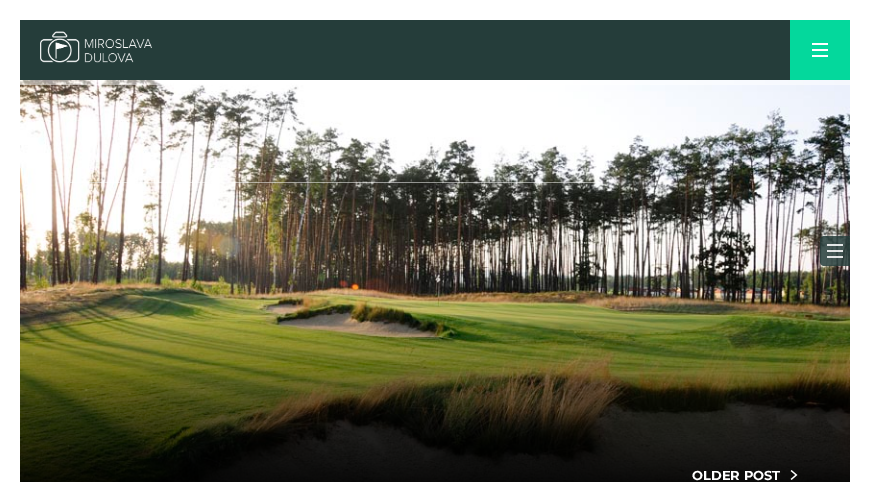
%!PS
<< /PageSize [870 502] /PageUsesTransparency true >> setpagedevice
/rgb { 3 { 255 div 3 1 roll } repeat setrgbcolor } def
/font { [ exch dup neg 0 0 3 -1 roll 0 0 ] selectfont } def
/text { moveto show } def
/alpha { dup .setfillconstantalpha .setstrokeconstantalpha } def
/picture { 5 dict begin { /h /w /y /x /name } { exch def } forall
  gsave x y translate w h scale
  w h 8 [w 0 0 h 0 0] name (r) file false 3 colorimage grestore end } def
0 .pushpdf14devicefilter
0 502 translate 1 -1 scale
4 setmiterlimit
255 255 255 rgb
0 0 870 502 rectfill
37 61 58 rgb
20 20 770 60 rectfill
(img_01.rgb) 40 31 112 32 picture
4 216 156 rgb
790 20 60 60 rectfill
255 255 255 rgb
812 43 16 2 rectfill
812 49 16 2 rectfill
812 55 16 2 rectfill
(img_02.rgb) 20 80 830 402 picture
0.5 alpha
20 80 830 5 rectfill
0.85 alpha
37 61 58 rgb
824 236 moveto 26 0 rlineto 0 30 rlineto -26 0 rlineto -2 0 -4 -2 -4 -4 rcurveto 0 -22 rlineto 0 -2 2 -4 4 -4 rcurveto closepath fill
255 255 255 rgb
827 244 16 2 rectfill
827 250 16 2 rectfill
827 256 16 2 rectfill
0.5 alpha
70 182 530 1 rectfill
1 alpha
(img_03.rgb) 790 470 8 10 picture
/Montserrat-Bold 13 font
(OLDER POST) 692 480 text
.poppdf14devicefilter showpage
